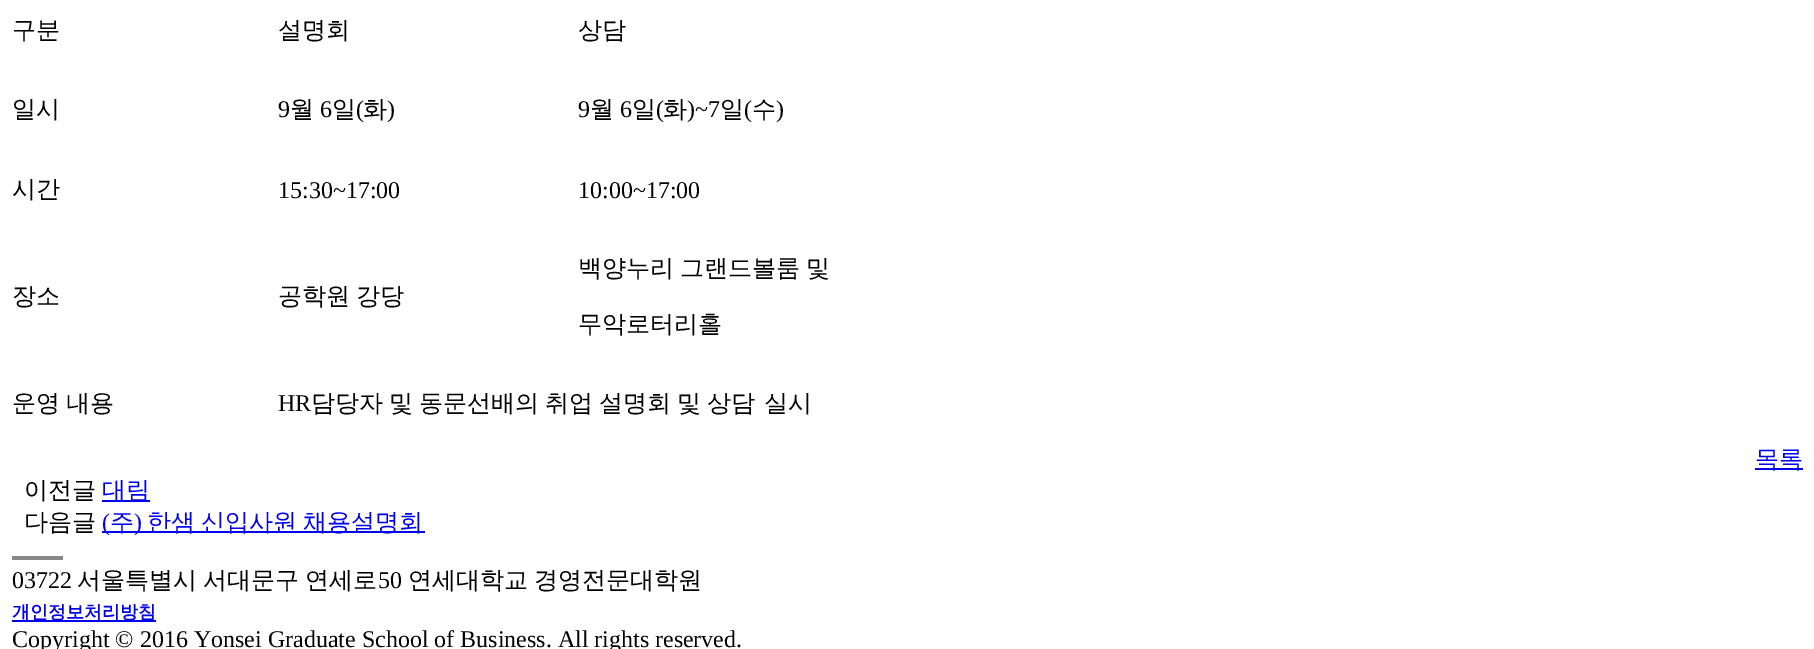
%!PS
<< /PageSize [1814 649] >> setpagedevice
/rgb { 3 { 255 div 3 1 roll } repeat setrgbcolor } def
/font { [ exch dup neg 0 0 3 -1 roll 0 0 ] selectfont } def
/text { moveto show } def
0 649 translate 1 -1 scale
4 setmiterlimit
255 255 255 rgb
0 0 1814 649 rectfill
0 0 238 rgb
1755 468 48 2 rectfill
102 500 48 2 rectfill
102 531 323 2 rectfill
136 136 136 rgb
12 556 51 4 rectfill
0 0 238 rgb
12 620 144 2 rectfill
/WenQuanYiZenHei-Medium 24 font
0 0 0 rgb
(구분) 12 38 text
(설명회) 278 38 text
(상담) 578 38 text
(일시) 12 117 text
/LiberationSerif-Regular 24 font
(9) 278 117 text
/WenQuanYiZenHei-Medium 24 font
(월) 290 117 text
/LiberationSerif-Regular 24 font
(6) 320 117 text
/WenQuanYiZenHei-Medium 24 font
(일) 332 117 text
/LiberationSerif-Regular 24 font
(\() 356 117 text
/WenQuanYiZenHei-Medium 24 font
(화) 363 117 text
/LiberationSerif-Regular 24 font
(\)) 387 117 text
(9) 578 117 text
/WenQuanYiZenHei-Medium 24 font
(월) 590 117 text
/LiberationSerif-Regular 24 font
(6) 620 117 text
/WenQuanYiZenHei-Medium 24 font
(일) 632 117 text
/LiberationSerif-Regular 24 font
(\() 656 117 text
/WenQuanYiZenHei-Medium 24 font
(화) 663 117 text
/LiberationSerif-Regular 24 font
(\)~7) 687 117 text
/WenQuanYiZenHei-Medium 24 font
(일) 720 117 text
/LiberationSerif-Regular 24 font
(\() 744 117 text
/WenQuanYiZenHei-Medium 24 font
(수) 752 117 text
/LiberationSerif-Regular 24 font
(\)) 776 117 text
/WenQuanYiZenHei-Medium 24 font
(시간) 12 197 text
/LiberationSerif-Regular 24 font
(15:30~17:00) 278 198 text
(10:00~17:00) 578 198 text
/WenQuanYiZenHei-Medium 24 font
(장소) 12 304 text
(공학원) 278 304 text
(강당) 356 304 text
(백양누리) 578 276 text
(그랜드볼룸) 680 276 text
(및) 806 276 text
(무악로터리홀) 578 332 text
(운영) 12 411 text
(내용) 66 411 text
/LiberationSerif-Regular 24 font
(HR) 278 411 text
/WenQuanYiZenHei-Medium 24 font
311 411 moveto -1.25 0 32 (담당자 및 동문선배의 취업 설명회 및 상담) widthshow
(실시) 764 411 text
0 0 238 rgb
(목록) 1755 467 text
0 0 0 rgb
(이전글) 24 498 text
0 0 238 rgb
(대림) 102 498 text
0 0 0 rgb
(다음글) 24 530 text
/LiberationSerif-Regular 24 font
0 0 238 rgb
(\() 102 530 text
/WenQuanYiZenHei-Medium 24 font
(주) 110 530 text
/LiberationSerif-Regular 24 font
(\)) 134 530 text
/WenQuanYiZenHei-Medium 24 font
147 530 moveto -1 0 32 (한샘 신입사원 채용설명회) widthshow
/LiberationSerif-Regular 24 font
0 0 0 rgb
(03722) 12 588 text
/WenQuanYiZenHei-Medium 24 font
77 588 moveto -1 0 32 (서울특별시 서대문구 연세로) widthshow
/LiberationSerif-Regular 24 font
(50) 378 588 text
/WenQuanYiZenHei-Medium 24 font
408 588 moveto -1 0 32 (연세대학교 경영전문대학원) widthshow
/WenQuanYiZenHei-Bold 18 font
0 0 238 rgb
(개인정보처리방침) 12 618 text
/LiberationSerif-Regular 24 font
0 0 0 rgb
(Copyright © 2016 Yonsei Graduate School of Business. All rights reserved.) 12 647 text
showpage
